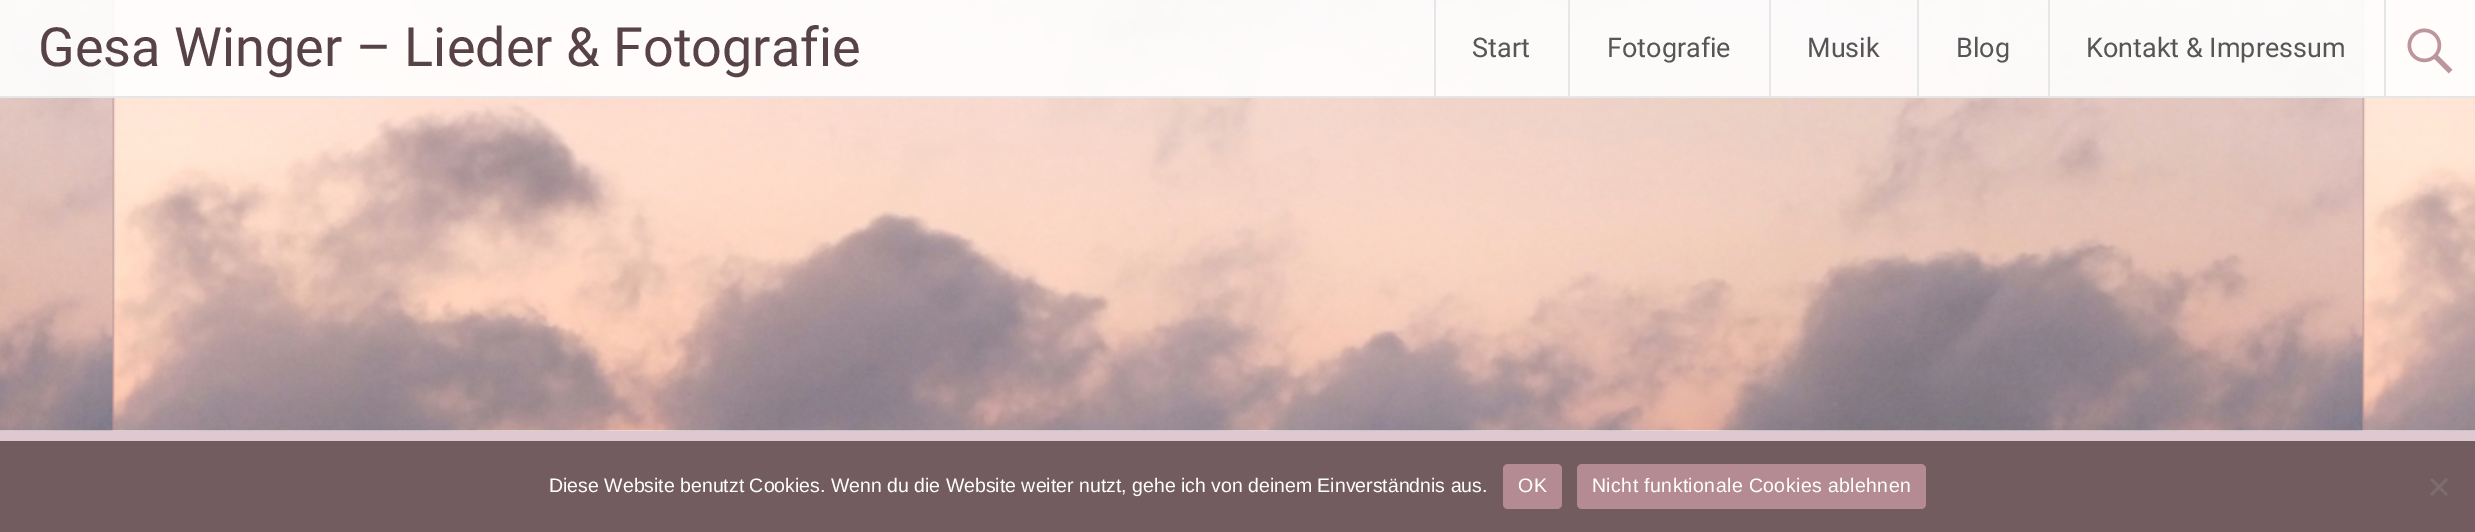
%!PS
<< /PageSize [2475 532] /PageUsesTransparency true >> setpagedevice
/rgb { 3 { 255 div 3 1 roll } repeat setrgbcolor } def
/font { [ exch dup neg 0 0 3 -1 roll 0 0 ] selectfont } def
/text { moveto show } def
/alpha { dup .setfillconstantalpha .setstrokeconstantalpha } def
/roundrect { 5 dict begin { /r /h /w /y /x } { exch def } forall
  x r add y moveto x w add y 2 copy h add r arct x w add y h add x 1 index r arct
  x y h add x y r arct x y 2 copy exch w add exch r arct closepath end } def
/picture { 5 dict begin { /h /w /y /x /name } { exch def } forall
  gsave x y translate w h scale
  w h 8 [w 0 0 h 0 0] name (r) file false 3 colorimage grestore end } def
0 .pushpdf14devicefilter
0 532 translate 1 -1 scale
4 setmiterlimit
255 255 255 rgb
0 0 2475 532 rectfill
(img_01.rgb) 0 0 2475 431 picture
0.9 alpha
0 0 2475 98 rectfill
225 228 230 rgb
0 96 2475 2 rectfill
1 alpha
228 230 232 rgb
1434 0 2 96 rectfill
1568 0 2 96 rectfill
1769 0 2 96 rectfill
1917 0 2 96 rectfill
2048 0 2 96 rectfill
2384 0 2 96 rectfill
(img_02.rgb) 2407 28 46 46 picture
221 201 207 rgb
0 431 2475 10 rectfill
115 92 96 rgb
0 441 2475 91 rectfill
180 139 146 rgb
1503 464 59 45 5 roundrect fill
1577 464 349 45 5 roundrect fill
122 110 112 rgb
2446 478 moveto 2 2 rlineto -16 16 rlineto -2 -2 rlineto closepath fill
2430 480 moveto 2 -2 rlineto 16 16 rlineto -2 2 rlineto closepath fill
/Roboto-Regular 54 font
87 66 71 rgb
(Gesa Winger – Lieder & Fotografie) 38 66 text
/Roboto-Regular 27 font
87 86 86 rgb
(Start) 1472 57 text
(Fotografie) 1607 57 text
(Musik) 1807 57 text
(Blog) 1956 57 text
(Kontakt & Impressum) 2086 57 text
/LiberationSans-Regular 19.5 font
255 255 255 rgb
(Diese Website benutzt Cookies. Wenn du die Website weiter nutzt, gehe ich von deinem Einverständnis aus.) 549 492 text
1518 492 moveto 0.4 0 (OK) ashow
1592 492 moveto 0.4 0 (Nicht funktionale Cookies ablehnen) ashow
.poppdf14devicefilter showpage
